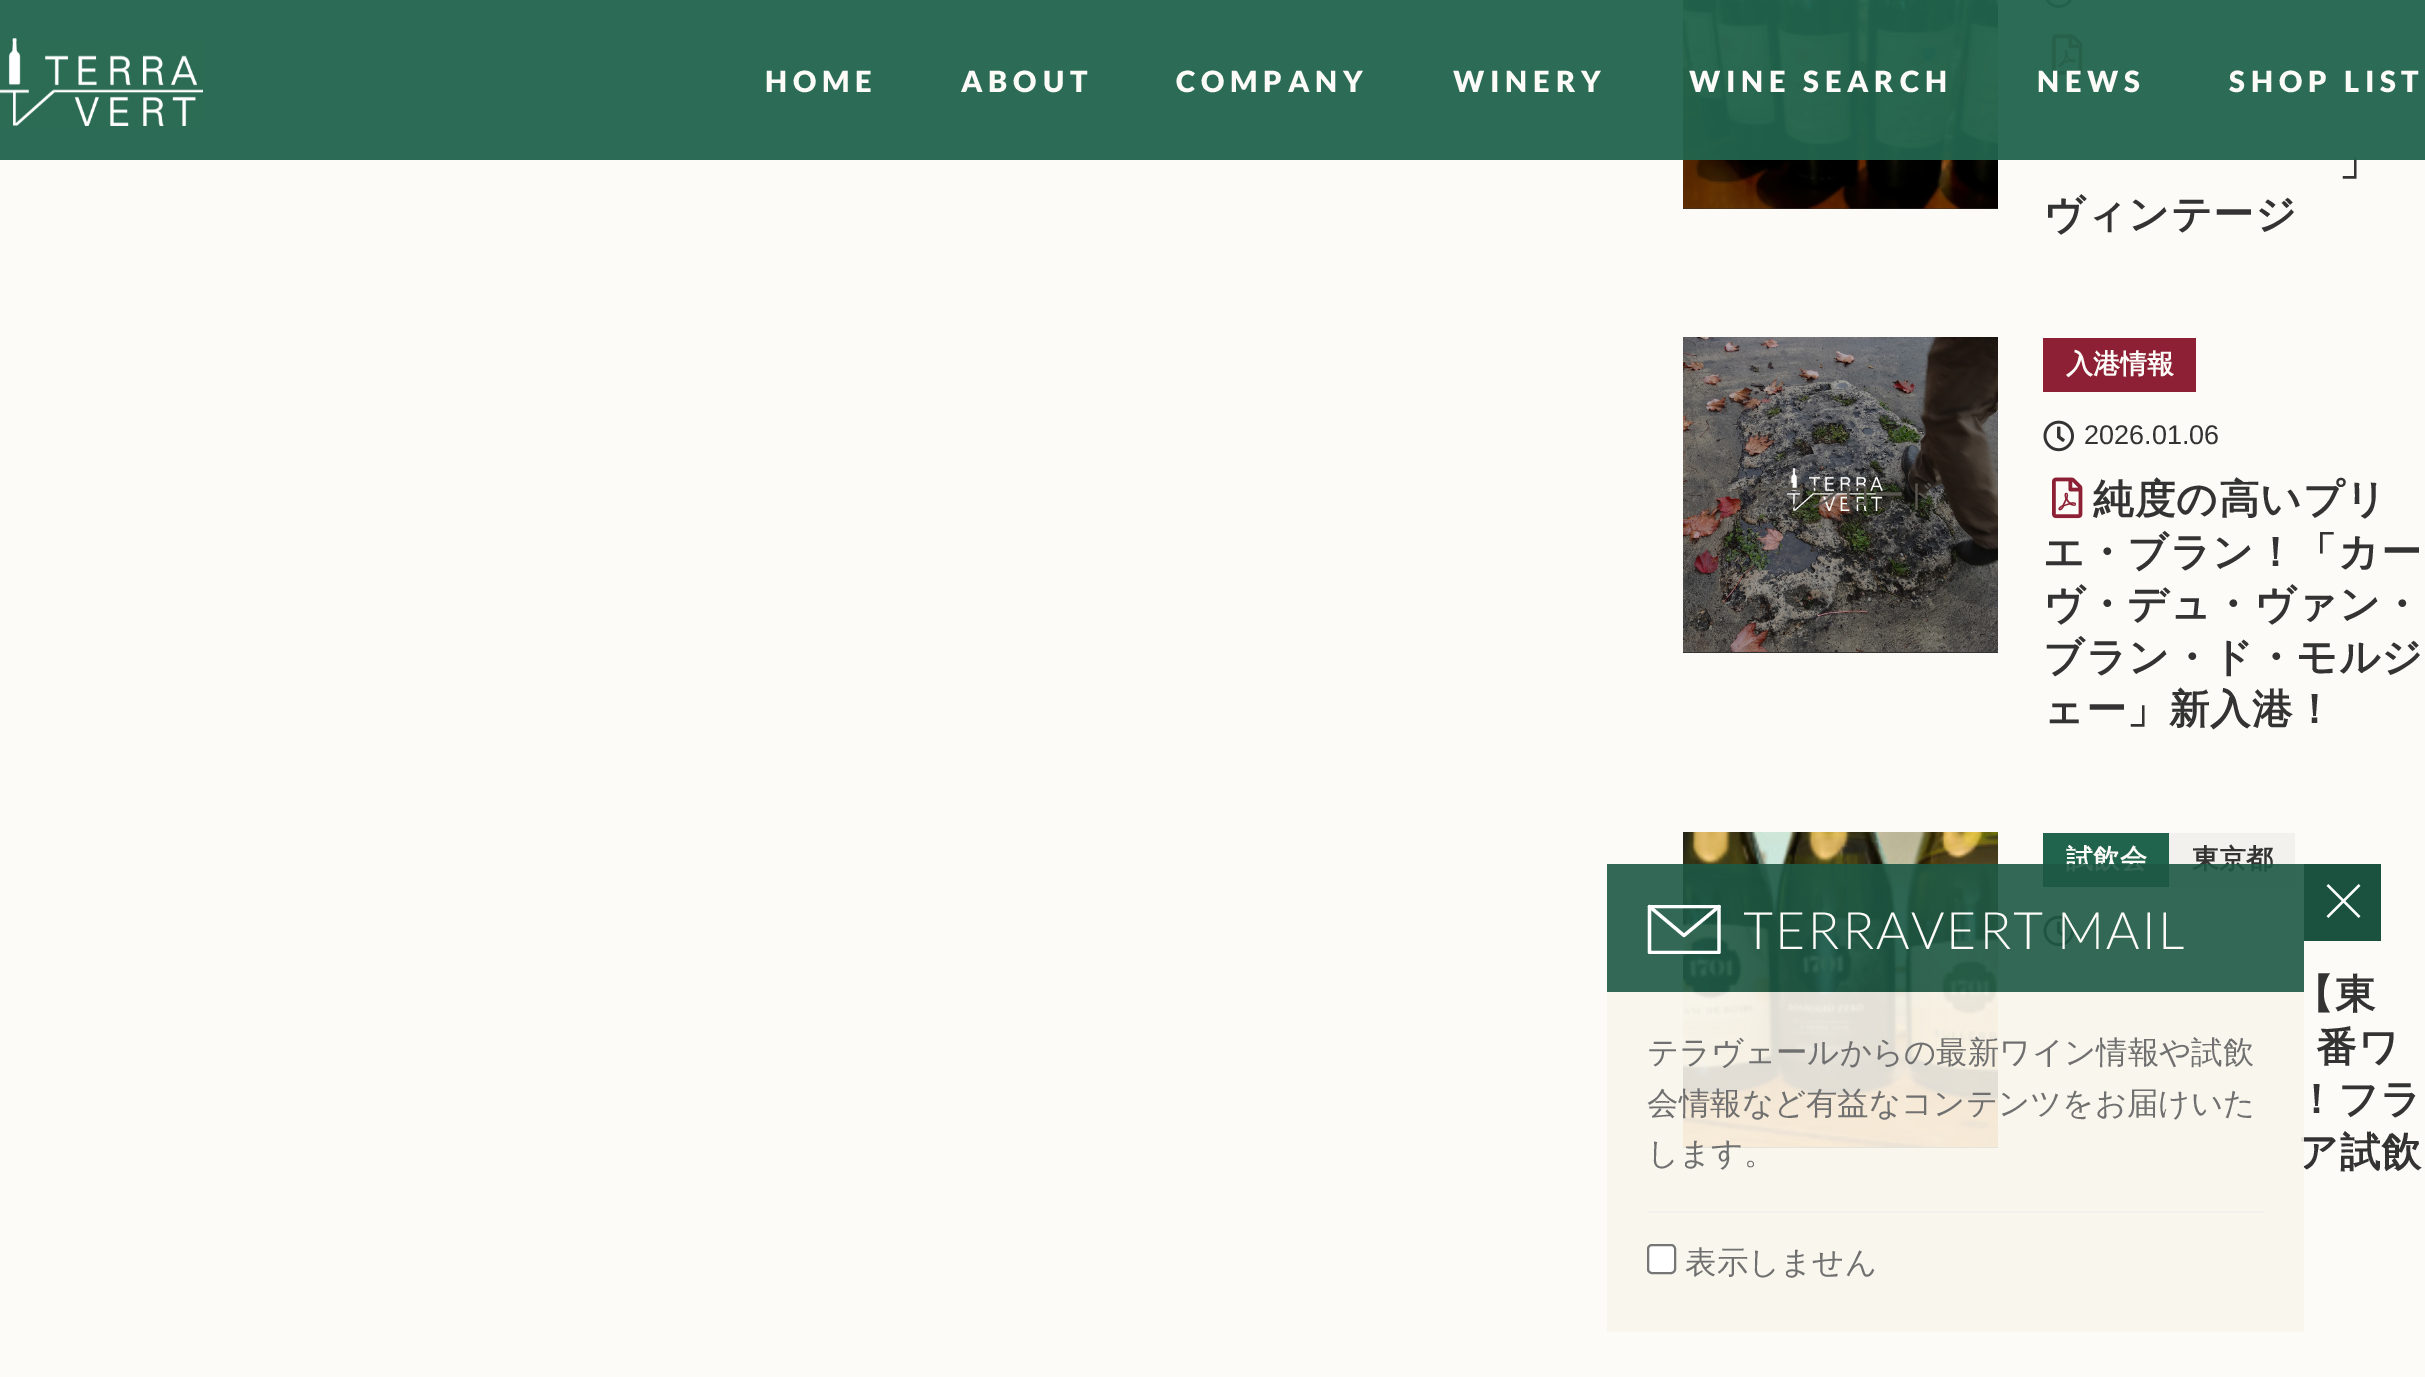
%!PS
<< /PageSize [2425 1377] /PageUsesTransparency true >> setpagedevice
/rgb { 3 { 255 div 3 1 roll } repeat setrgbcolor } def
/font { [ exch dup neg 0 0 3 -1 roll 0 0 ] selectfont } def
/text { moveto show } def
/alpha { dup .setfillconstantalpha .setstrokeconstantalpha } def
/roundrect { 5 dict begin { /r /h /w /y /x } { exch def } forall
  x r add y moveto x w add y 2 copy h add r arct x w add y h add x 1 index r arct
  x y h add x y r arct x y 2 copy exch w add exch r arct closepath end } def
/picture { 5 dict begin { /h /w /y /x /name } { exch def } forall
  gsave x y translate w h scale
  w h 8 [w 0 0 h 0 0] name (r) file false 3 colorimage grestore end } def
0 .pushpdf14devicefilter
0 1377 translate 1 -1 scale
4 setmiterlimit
252 251 247 rgb
0 0 2425 1377 rectfill
51 51 51 rgb
1683 208 315 1 rectfill
(img_02.rgb) 1683 0 315 209 picture
(img_03.rgb) 2045 0 27 8 picture
(img_04.rgb) 2052 34 31 41 picture
1683 652 315 1 rectfill
(img_05.rgb) 1683 337 315 315 picture
141 32 53 rgb
2043 338 153 54 rectfill
(img_06.rgb) 2043 420 31 32 picture
(img_07.rgb) 2052 477 31 42 picture
51 51 51 rgb
1683 1147 315 1 rectfill
(img_08.rgb) 1683 832 315 315 picture
33 100 77 rgb
2043 833 126 54 rectfill
242 241 237 rgb
2169 833 126 54 rectfill
(img_06.rgb) 2043 915 31 32 picture
27 82 63 rgb
2304 864 77 77 rectfill
255 255 255 rgb
2.3 setlinewidth
2327.5 885 moveto 32 32 rlineto 2359.5 885 moveto -32 32 rlineto stroke
/WenQuanYiZenHei-Bold 40.5 font
51 51 51 rgb
2339 175 moveto 1.1 0 (」) ashow
0.95 alpha
33 100 77 rgb
0 0 2425 160 rectfill
/Lato-Black 29.25 font
1 alpha
252 251 247 rgb
2229 92 moveto 5.8 0 (SHOP LIST) ashow
2037 92 moveto 5.8 0 (NEWS) ashow
1689 92 moveto 5.8 0 (WINE SEARCH) ashow
1453 92 moveto 5.8 0 (WINERY) ashow
1176 92 moveto 5.8 0 (COMPANY) ashow
961 92 moveto 5.8 0 (ABOUT) ashow
765 92 moveto 5.8 0 (HOME) ashow
(img_01.rgb) 0 38 203 88 picture
/WenQuanYiZenHei-Bold 40.5 font
51 51 51 rgb
2043 228 moveto 1.1 0 (ヴィンテージ) ashow
/WenQuanYiZenHei-Medium 31.5 font
88 85 79 rgb
(ダウンロード) 1744 506 text
/WenQuanYiZenHei-Bold 27 font
252 251 247 rgb
(入港情報) 2066 373 text
/LiberationSans-Regular 27 font
51 51 51 rgb
(2026.01.06) 2084 444 text
/WenQuanYiZenHei-Bold 40.5 font
2093 513 moveto 1.1 0 (純度の高いプリ) ashow
2043 566 moveto 1.1 0 (エ・ブラン！「カー) ashow
2043 618 moveto 1.1 0 (ヴ・デュ・ヴァン・) ashow
2043 671 moveto 1.1 0 (ブラン・ド・モルジ) ashow
2043 723 moveto 1.1 0 (ェー」新入港！) ashow
/WenQuanYiZenHei-Bold 27 font
252 251 247 rgb
(試飲会) 2066 868 text
51 51 51 rgb
(東京都) 2192 868 text
/WenQuanYiZenHei-Bold 40.5 font
2293 1008 moveto 1.1 0 (【東) ashow
2316 1061 moveto 1.1 0 (番ワ) ashow
2296 1113 moveto 1.1 0 (！フラ) ashow
2297 1166 moveto 1.1 0 (ア試飲) ashow
0.9 alpha
29 88 68 rgb
1607 864 697 128 rectfill
gsave
1647 905 74 49 rectclip
1 alpha
255 255 255 rgb
3.2 setlinewidth
1 setlinecap
1 setlinejoin
1649.5 906.5 moveto 69.5 0 rlineto 0 46 rlineto -69.5 0 rlineto closepath stroke
grestore
1 alpha
255 255 255 rgb
3.2 setlinewidth
1 setlinecap
1 setlinejoin
1719 906.5 moveto -35 29 rlineto -34.5 -29 rlineto stroke
/Lato-Light 51.75 font
252 251 247 rgb
1743 949 moveto 1.75 0 (TERRAVERT MAIL) ashow
0.9 alpha
248 245 236 rgb
1607 992 697 340 rectfill
/WenQuanYiZenHei-Medium 31.5 font
1 alpha
112 112 112 rgb
(テラヴェールからの最新ワイン情報や試飲) 1647 1063 text
(会情報など有益なコンテンツをお届けいた) 1647 1114 text
(します。) 1647 1164 text
242 241 237 rgb
1647 1211 617 2 rectfill
255 255 255 rgb
1648 1245 27 28 4 roundrect gsave fill grestore
118 118 118 rgb
2 setlinewidth
0 setlinecap
0 setlinejoin
stroke
112 112 112 rgb
(表示しません) 1685 1273 text
.poppdf14devicefilter showpage
